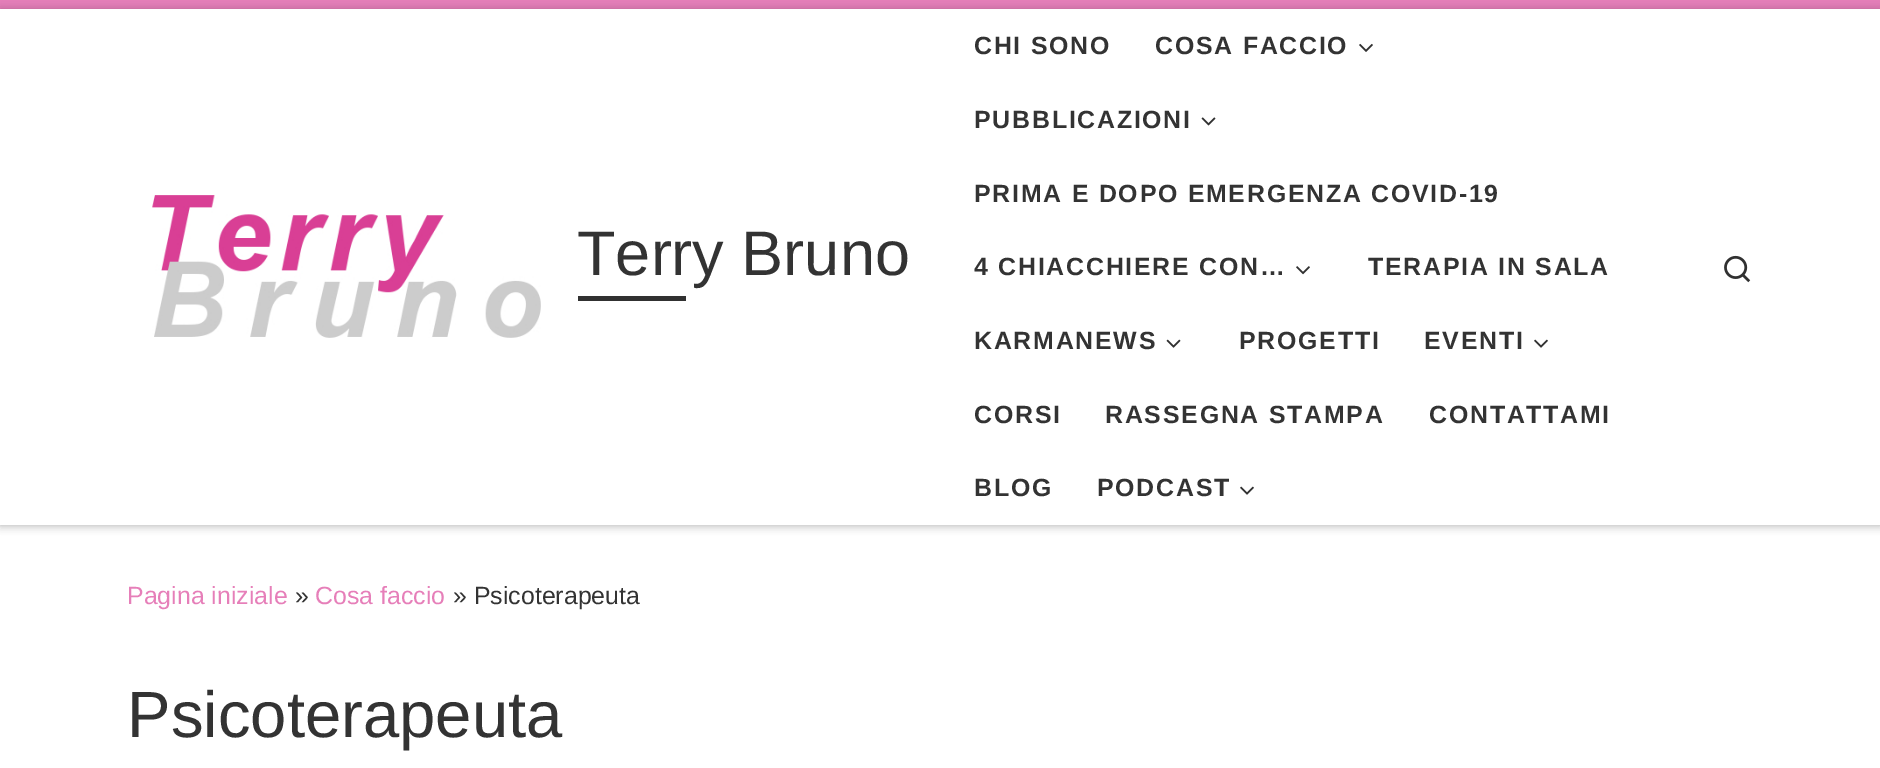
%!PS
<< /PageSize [1880 768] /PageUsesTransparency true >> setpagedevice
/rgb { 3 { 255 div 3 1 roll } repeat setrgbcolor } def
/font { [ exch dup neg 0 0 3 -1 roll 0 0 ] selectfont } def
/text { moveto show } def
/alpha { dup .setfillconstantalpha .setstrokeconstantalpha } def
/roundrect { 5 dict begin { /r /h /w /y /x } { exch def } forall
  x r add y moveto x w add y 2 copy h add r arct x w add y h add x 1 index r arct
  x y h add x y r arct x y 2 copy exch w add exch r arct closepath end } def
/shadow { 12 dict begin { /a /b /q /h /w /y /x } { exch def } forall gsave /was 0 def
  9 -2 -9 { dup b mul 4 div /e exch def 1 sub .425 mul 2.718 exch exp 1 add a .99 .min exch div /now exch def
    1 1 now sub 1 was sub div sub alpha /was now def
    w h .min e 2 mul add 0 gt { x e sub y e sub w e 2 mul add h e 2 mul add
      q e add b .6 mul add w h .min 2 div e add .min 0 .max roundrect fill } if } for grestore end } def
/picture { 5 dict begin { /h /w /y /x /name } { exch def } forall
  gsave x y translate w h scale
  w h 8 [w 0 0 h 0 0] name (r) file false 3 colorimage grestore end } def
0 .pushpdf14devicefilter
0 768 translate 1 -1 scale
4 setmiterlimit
255 255 255 rgb
0 0 1880 768 rectfill
102 102 102 rgb
0 4 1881 526 0 2 0.08 shadow
255 255 255 rgb
0 9 1880 516 rectfill
230 127 185 rgb
0 0 1880 9 rectfill
239 239 239 rgb
0 525 1880 2 rectfill
gsave
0 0 moveto 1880 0 rlineto 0 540 rlineto -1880 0 rlineto closepath 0 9 moveto 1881 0 rlineto 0 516 rlineto -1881 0 rlineto closepath eoclip newpath
0 0 0 rgb
0 9 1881 516 0 4.5 0.2 shadow
grestore
(img_01.rgb) 152 195 389 143 picture
49 49 49 rgb
578 296 108 5 rectfill
(img_02.rgb) 1359 43 14 9 picture
(img_03.rgb) 1201 117 15 9 picture
(img_04.rgb) 1296 266 14 9 picture
(img_05.rgb) 1166 339 15 9 picture
(img_06.rgb) 1534 339 14 9 picture
(img_06.rgb) 1240 486 14 9 picture
(img_07.rgb) 1724 255 27 28 picture
/LiberationSans-Regular 63 font
51 51 51 rgb
(Terry Bruno) 577 275 text
/LiberationSans-Bold 24.9 font
974 54 moveto 1.75 0 (CHI SONO) ashow
1155 54 moveto 1.75 0 (COSA FACCIO) ashow
974 128 moveto 1.75 0 (PUBBLICAZIONI) ashow
974 202 moveto 1.75 0 (PRIMA E DOPO EMERGENZA COVID-19) ashow
974 275 moveto 1.75 0 (4 CHIACCHIERE CON…) ashow
1368 275 moveto 1.75 0 (TERAPIA IN SALA) ashow
974 349 moveto 1.75 0 (KARMANEWS) ashow
1239 349 moveto 1.75 0 (PROGETTI) ashow
1424 349 moveto 1.75 0 (EVENTI) ashow
974 423 moveto 1.75 0 (CORSI) ashow
1105 423 moveto 1.75 0 (RASSEGNA STAMPA) ashow
1429 423 moveto 1.75 0 (CONTATTAMI) ashow
974 496 moveto 1.75 0 (BLOG) ashow
1097 496 moveto 1.75 0 (PODCAST) ashow
/LiberationSans-Regular 24.9 font
230 127 185 rgb
(Pagina iniziale) 127 604 text
51 51 51 rgb
(») 295 604 text
230 127 185 rgb
(Cosa faccio) 315 604 text
51 51 51 rgb
(» Psicoterapeuta) 453 604 text
/LiberationSans-Regular 65.25 font
(Psicoterapeuta) 127 737 text
.poppdf14devicefilter showpage
